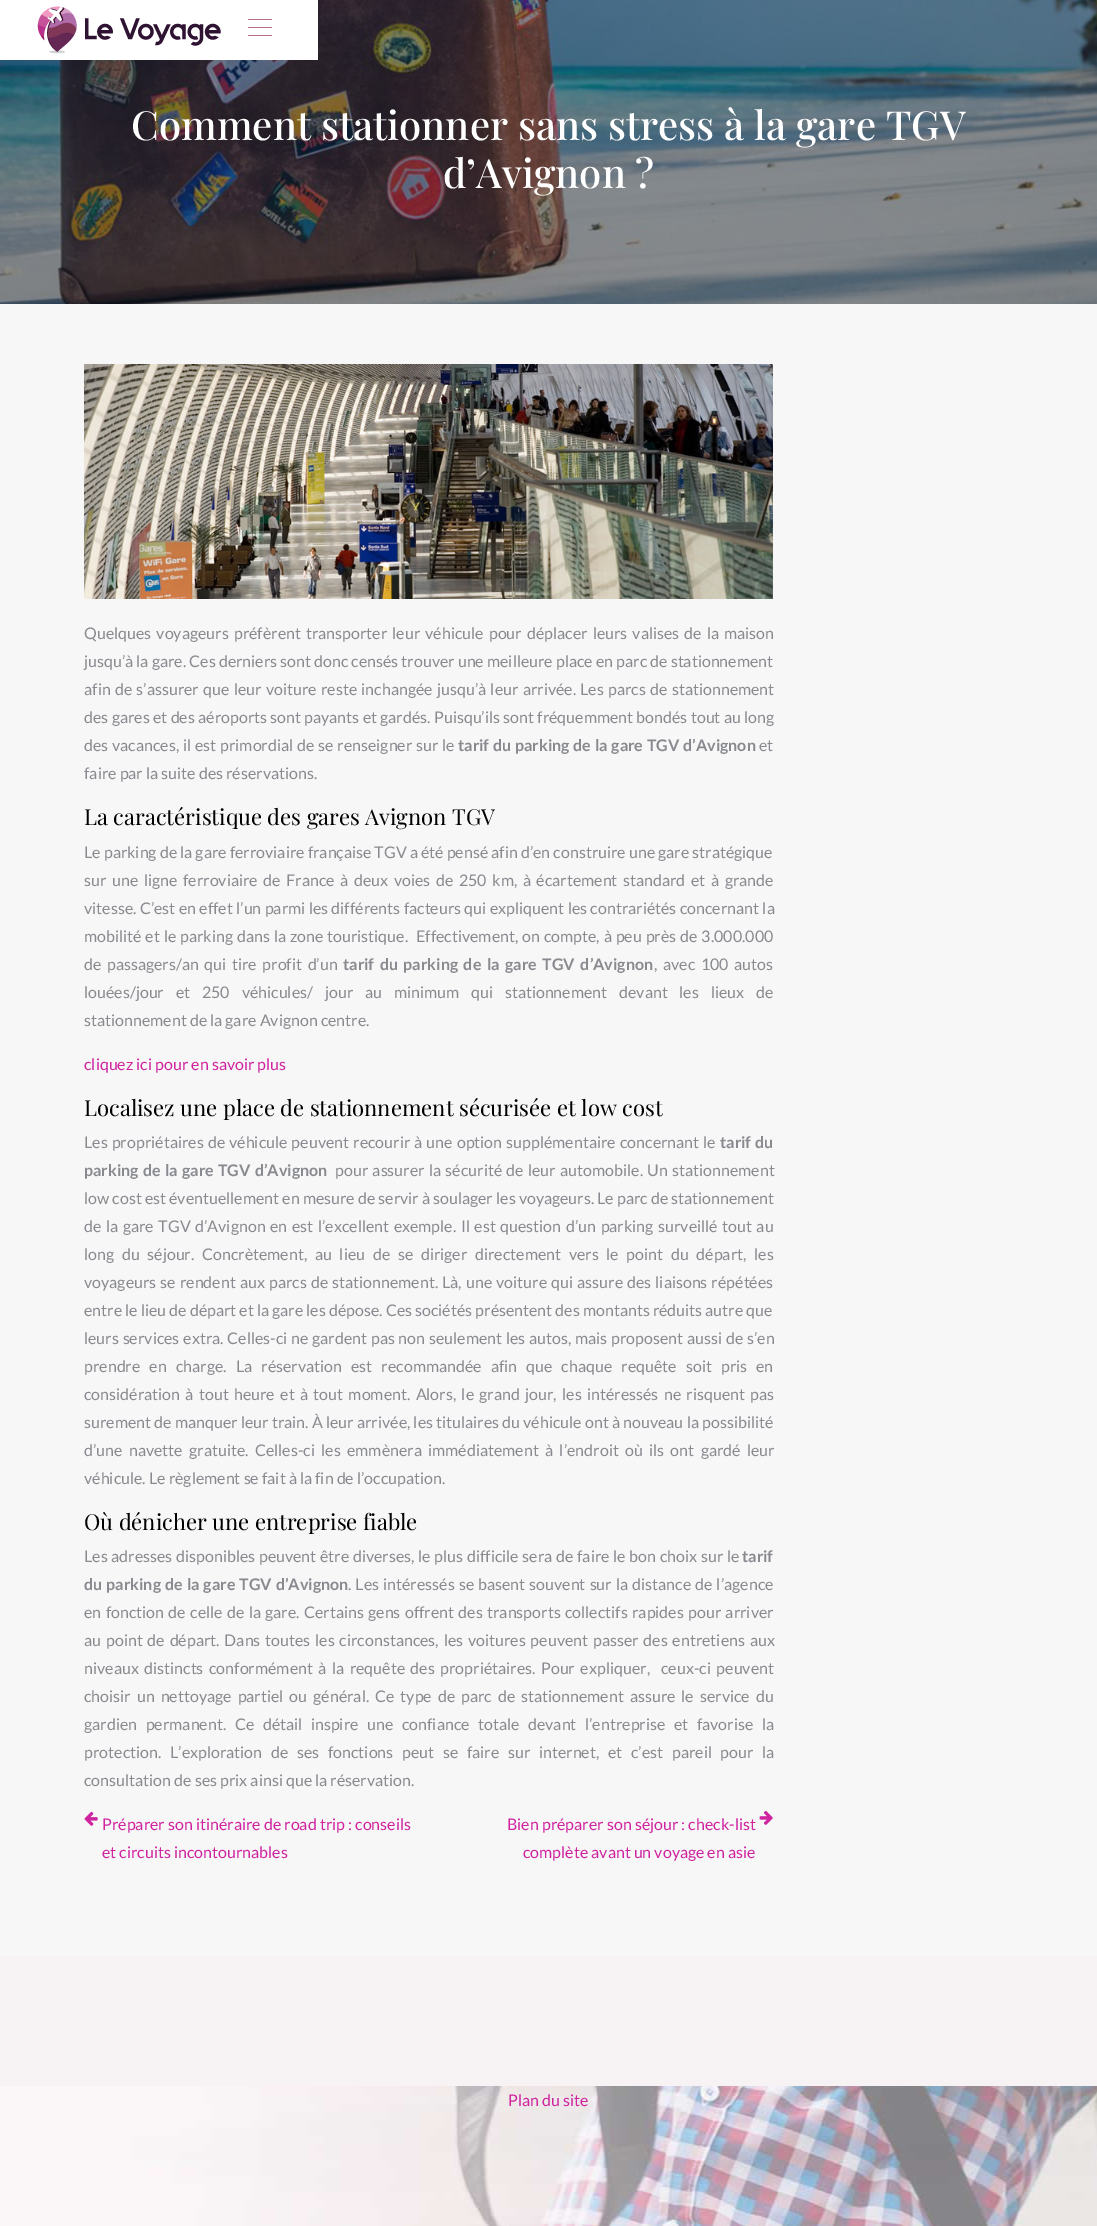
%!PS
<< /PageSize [1097 2226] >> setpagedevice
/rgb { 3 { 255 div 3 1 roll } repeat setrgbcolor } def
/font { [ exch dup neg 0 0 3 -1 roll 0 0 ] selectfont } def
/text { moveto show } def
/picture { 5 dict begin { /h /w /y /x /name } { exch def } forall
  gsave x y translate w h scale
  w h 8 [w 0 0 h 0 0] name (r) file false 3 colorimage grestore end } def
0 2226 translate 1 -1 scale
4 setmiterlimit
255 255 255 rgb
0 0 1097 2226 rectfill
(img_01.rgb) 0 2086 1097 140 picture
(img_03.rgb) 0 0 1097 304 picture
0 0 318 60 rectfill
(img_02.rgb) 37 6 184 48 picture
182 111 134 rgb
248 19 24 1 rectfill
248 27 24 1 rectfill
248 35 24 1 rectfill
247 247 247 rgb
0 304 1097 1652 rectfill
(img_04.rgb) 84 364 689 235 picture
(img_05.rgb) 84 1811 14 15 picture
(img_06.rgb) 759 1811 14 14 picture
247 243 244 rgb
0 1956 1097 130 rectfill
/PlayfairDisplay-Medium 40 font
255 255 255 rgb
(Comment stationner sans stress à la gare TGV) 131 140 text
(d’Avignon ?) 443 188 text
/Lato-Regular 16 font
137 138 144 rgb
84 639 moveto 2 0 32 (Quelques voyageurs préfèrent transporter leur véhicule pour déplacer leurs valises de la maison) widthshow
(jusqu’à la gare. Ces derniers sont donc censés trouver une meilleure place en parc de stationnement) 84 667 text
84 695 moveto 1.2 0 32 (afin de s’assurer que leur voiture reste inchangée jusqu’à leur arrivée. Les parcs de stationnement) widthshow
84 723 moveto 0.2 0 32 (des gares et des aéroports sont payants et gardés. Puisqu’ils sont fréquemment bondés tout au long) widthshow
84 751 moveto 0.75 0 32 (des vacances, il est primordial de se renseigner sur le) widthshow
/Lato-Bold 16 font
458 751 moveto 0.75 0 32 (tarif du parking de la gare TGV d’Avignon) widthshow
/Lato-Regular 16 font
(et) 759 751 text
(faire par la suite des réservations.) 84 779 text
/PlayfairDisplay-Regular 22 font
0 0 0 rgb
(La caractéristique des gares Avignon TGV) 84 825 text
/Lato-Regular 16 font
137 138 144 rgb
(Le parking de la gare ferroviaire française TGV a été pensé afin d’en construire une gare stratégique) 84 858 text
84 886 moveto 2.5 0 32 (sur une ligne ferroviaire de France à deux voies de 250 km, à écartement standard et à grande) widthshow
84 914 moveto 0.25 0 32 (vitesse. C’est en effet l’un parmi les différents facteurs qui expliquent les contrariétés concernant la) widthshow
84 942 moveto 0.8 0 32 (mobilité et le parking dans la zone touristique.  Effectivement, on compte, à peu près de 3.000.000) widthshow
84 970 moveto 2.5 0 32 (de passagers/an qui tire profit d’un) widthshow
/Lato-Bold 16 font
343 970 moveto 2.5 0 32 (tarif du parking de la gare TGV d’Avignon) widthshow
/Lato-Regular 16 font
654 970 moveto 2.5 0 32 (, avec 100 autos) widthshow
84 998 moveto 8.75 0 32 (louées/jour et 250 véhicules/ jour au minimum qui stationnement devant les lieux de) widthshow
(stationnement de la gare Avignon centre.) 84 1026 text
207 35 160 rgb
(cliquez ici pour en savoir plus) 84 1070 text
/PlayfairDisplay-Regular 22 font
0 0 0 rgb
(Localisez une place de stationnement sécurisée et low cost) 84 1116 text
/Lato-Regular 16 font
137 138 144 rgb
84 1148 moveto 1 0 32 (Les propriétaires de véhicule peuvent recourir à une option supplémentaire concernant le) widthshow
/Lato-Bold 16 font
720 1148 moveto 1 0 32 (tarif du) widthshow
84 1176 moveto 1.25 0 32 (parking de la gare TGV d’Avignon) widthshow
/Lato-Regular 16 font
335 1176 moveto 1.25 0 32 (pour assurer la sécurité de leur automobile. Un stationnement) widthshow
(low cost est éventuellement en mesure de servir à soulager les voyageurs. Le parc de stationnement) 84 1204 text
84 1232 moveto 1.5 0 32 (de la gare TGV d’Avignon en est l’excellent exemple. Il est question d’un parking surveillé tout au) widthshow
84 1260 moveto 4.6 0 32 (long du séjour. Concrètement, au lieu de se diriger directement vers le point du départ, les) widthshow
84 1288 moveto 1 0 32 (voyageurs se rendent aux parcs de stationnement. Là, une voiture qui assure des liaisons répétées) widthshow
(entre le lieu de départ et la gare les dépose. Ces sociétés présentent des montants réduits autre que) 84 1316 text
84 1344 moveto 0.7 0 32 (leurs services extra. Celles-ci ne gardent pas non seulement les autos, mais proposent aussi de s’en) widthshow
84 1372 moveto 6 0 32 (prendre en charge. La réservation est recommandée afin que chaque requête soit pris en) widthshow
84 1400 moveto 2.25 0 32 (considération à tout heure et à tout moment. Alors, le grand jour, les intéressés ne risquent pas) widthshow
84 1428 moveto 0.1 0 32 (surement de manquer leur train. À leur arrivée, les titulaires du véhicule ont à nouveau la possibilité) widthshow
84 1456 moveto 3.25 0 32 (d’une navette gratuite. Celles-ci les emmènera immédiatement à l’endroit où ils ont gardé leur) widthshow
(véhicule. Le règlement se fait à la fin de l’occupation.) 84 1484 text
/PlayfairDisplay-Regular 22 font
0 0 0 rgb
(Où dénicher une entreprise fiable) 84 1530 text
/Lato-Regular 16 font
137 138 144 rgb
84 1562 moveto 0.6 0 32 (Les adresses disponibles peuvent être diverses, le plus difficile sera de faire le bon choix sur le) widthshow
/Lato-Bold 16 font
(tarif) 742 1562 text
84 1590 moveto 1 0 32 (du parking de la gare TGV d’Avignon) widthshow
/Lato-Regular 16 font
348 1590 moveto 1 0 32 (. Les intéressés se basent souvent sur la distance de l’agence) widthshow
84 1618 moveto 1.25 0 32 (en fonction de celle de la gare. Certains gens offrent des transports collectifs rapides pour arriver) widthshow
84 1646 moveto 1.75 0 32 (au point de départ. Dans toutes les circonstances, les voitures peuvent passer des entretiens aux) widthshow
84 1674 moveto 2.4 0 32 (niveaux distincts conformément à la requête des propriétaires. Pour expliquer,  ceux-ci peuvent) widthshow
84 1702 moveto 2.9 0 32 (choisir un nettoyage partiel ou général. Ce type de parc de stationnement assure le service du) widthshow
84 1730 moveto 5.5 0 32 (gardien permanent. Ce détail inspire une confiance totale devant l’entreprise et favorise la) widthshow
84 1758 moveto 5.6 0 32 (protection. L’exploration de ses fonctions peut se faire sur internet, et c’est pareil pour la) widthshow
(consultation de ses prix ainsi que la réservation.) 84 1786 text
207 35 160 rgb
(Préparer son itinéraire de road trip : conseils) 102 1830 text
(et circuits incontournables) 102 1858 text
(Bien préparer son séjour : check-list) 507 1830 text
(complète avant un voyage en asie) 523 1858 text
(Plan du site) 508 2106 text
showpage
